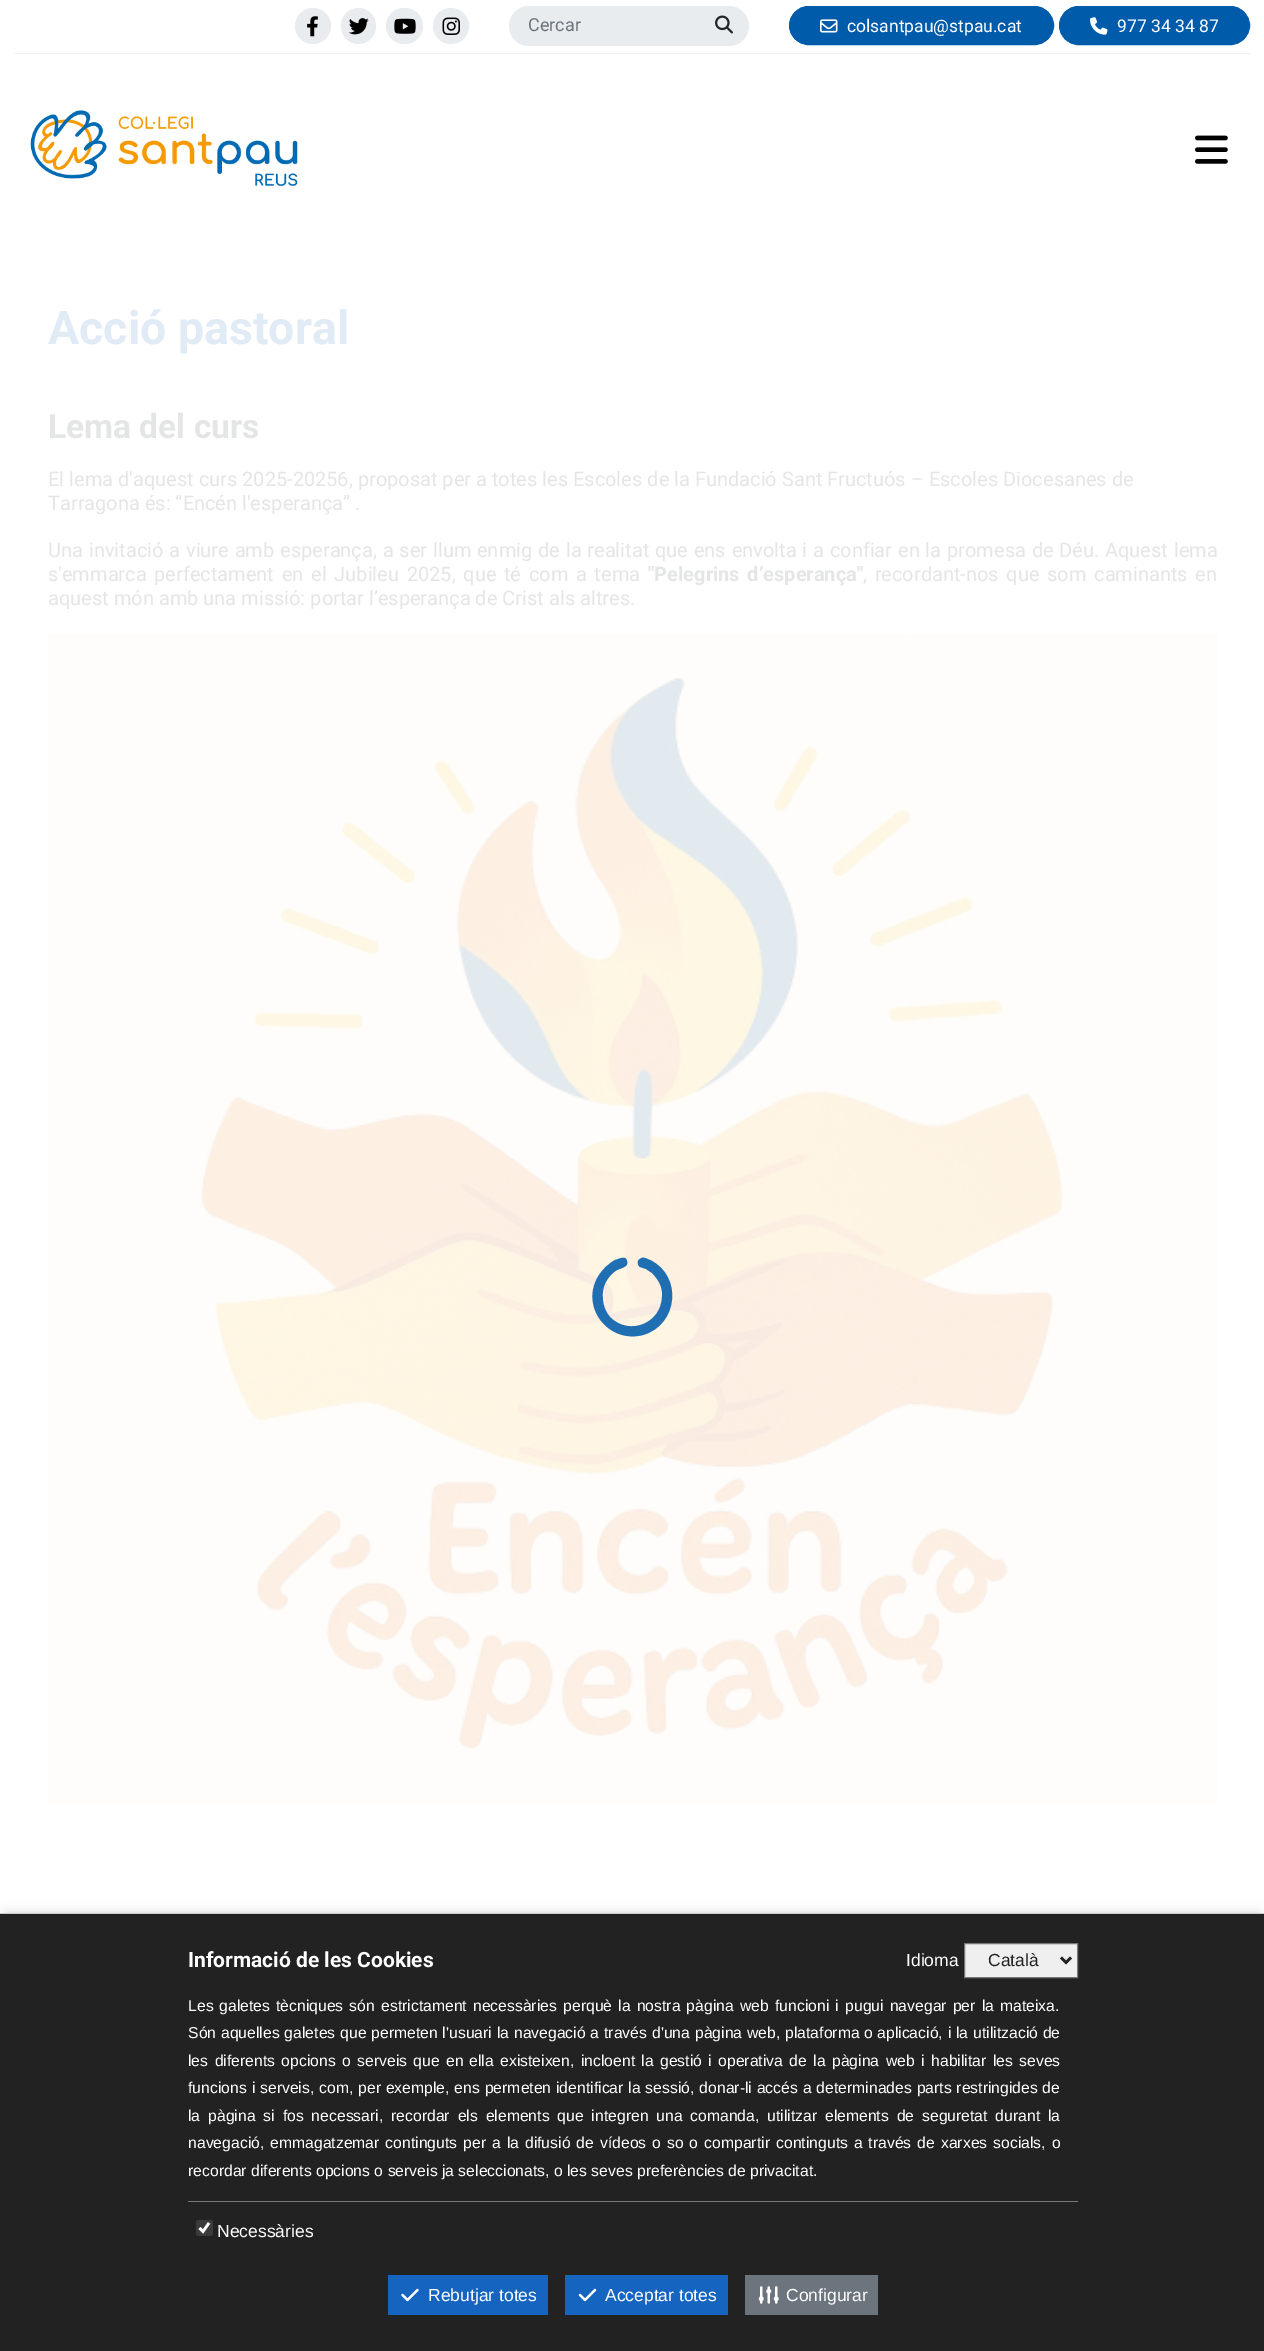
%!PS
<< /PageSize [1264 2351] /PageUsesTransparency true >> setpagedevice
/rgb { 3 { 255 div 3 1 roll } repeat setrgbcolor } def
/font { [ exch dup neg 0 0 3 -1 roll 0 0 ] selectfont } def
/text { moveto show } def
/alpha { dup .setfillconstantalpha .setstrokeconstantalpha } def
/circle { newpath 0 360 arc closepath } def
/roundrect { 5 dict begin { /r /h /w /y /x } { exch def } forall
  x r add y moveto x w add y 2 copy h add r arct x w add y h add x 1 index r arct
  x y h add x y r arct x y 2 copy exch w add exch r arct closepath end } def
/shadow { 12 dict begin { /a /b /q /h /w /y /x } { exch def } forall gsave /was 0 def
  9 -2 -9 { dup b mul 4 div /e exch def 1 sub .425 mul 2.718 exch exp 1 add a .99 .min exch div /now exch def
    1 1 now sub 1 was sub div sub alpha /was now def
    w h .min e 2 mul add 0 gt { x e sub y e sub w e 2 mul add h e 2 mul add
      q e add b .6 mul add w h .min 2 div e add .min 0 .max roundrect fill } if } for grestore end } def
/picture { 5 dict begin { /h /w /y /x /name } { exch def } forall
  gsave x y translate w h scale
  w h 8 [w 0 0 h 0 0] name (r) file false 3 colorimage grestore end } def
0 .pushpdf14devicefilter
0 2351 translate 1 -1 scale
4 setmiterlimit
255 255 255 rgb
0 0 1264 2351 rectfill
239 239 239 rgb
15 53 1235 1 rectfill
233 236 239 rgb
313 26 18 circle fill
(img_01.rgb) 307 16 11 21 picture
341 8 35 36 17.5 roundrect fill
(img_02.rgb) 349 18 20 17 picture
386 8 37 36 18 roundrect fill
(img_03.rgb) 394 18 22 16 picture
451 26 18 circle fill
(img_04.rgb) 442 17 18 18 picture
509 6 240 40 20 roundrect fill
(img_05.rgb) 715 15 18 19 picture
0 92 171 rgb
789.5 6.5 264 38 19 roundrect gsave fill grestore
stroke
(img_06.rgb) 820 19 18 14 picture
1059.5 6.5 190 38 19 roundrect gsave fill grestore
stroke
(img_07.rgb) 1090 17 18 18 picture
(img_08.rgb) 30 110 268 77 picture
(img_09.rgb) 1195 135 33 29 picture
(img_10.rgb) 47 633 1171 1171 picture
0.88 alpha
627 1261 moveto 2 6 -6 7 -10 9 rcurveto -10 6 -16 18 -14 29 rcurveto 0 7 3 14 8 19 rcurveto 19 18 51 5 51 -22 rcurveto 1 -9 -4 -17 -10 -23 rcurveto -6 -4 rlineto -6 -2 rlineto -3 -2 -3 -7 0 -8 rcurveto 3 -3 7 0 10 1 rcurveto 33 16 28 65 -7 75 rcurveto -35 9 -64 -29 -44 -60 rcurveto 4 -6 9 -11 16 -15 rcurveto 4 -1 11 -5 12 1 rcurveto closepath fill
1 alpha
0 0 0 rgb
6 1913 1253 426 0 6 0.16 shadow
34 34 34 rgb
0 1914 1264 437 rectfill
204 204 204 rgb
0 1913 1264 1 rectfill
239 239 239 rgb
964.5 1943.5 moveto 113 0 rlineto 0 34 rlineto -113 0 rlineto closepath gsave fill grestore
119 119 119 rgb
stroke
34 34 34 rgb
2.5 setlinewidth
1061 1957.5 moveto 5 5 rlineto 5 -5 rlineto stroke
119 119 119 rgb
188 2201 890 1 rectfill
59 59 59 rgb
196 2220 17 16 2.5 roundrect fill
255 255 255 rgb
2.6 setlinewidth
199.5 2228 moveto 3.5 3.5 rlineto 6 -8.5 rlineto stroke
21 101 192 rgb
388 2275 160 40 rectfill
(img_11.rgb) 401 2288 18 14 picture
565 2275 163 40 rectfill
(img_12.rgb) 578 2288 19 14 picture
108 117 125 rgb
745 2275 133 40 rectfill
(img_13.rgb) 758 2286 21 18 picture
/Roboto-Regular 18 font
(Cercar) 528 31 text
/Roboto-Regular 17.5 font
255 255 255 rgb
(colsantpau@stpau.cat) 847 32 text
(977 34 34 87) 1117 32 text
/Roboto-Bold 46.5 font
224 235 245 rgb
(Acció pastoral) 48 344 text
/Roboto-Bold 33.5 font
228 229 229 rgb
(Lema del curs) 48 438 text
/Roboto-Regular 20 font
(El lema d'aquest curs 2025-20256, proposat per a totes les Escoles de la Fundació Sant Fructuós – Escoles Diocesanes de) 48 486 text
(Tarragona és: “Encén l'esperança” .) 48 510 text
48 557 moveto 0.85 0 32 (Una invitació a viure amb esperança, a ser llum enmig de la realitat que ens envolta i a confiar en la promesa de Déu. Aquest lema) widthshow
48 581 moveto 2.75 0 32 (s'emmarca perfectament en el Jubileu 2025, que té com a tema) widthshow
/Roboto-Bold 20 font
648 581 moveto 2.75 0 32 ("Pelegrins d’esperança") widthshow
/Roboto-Regular 20 font
863 581 moveto 2.75 0 32 (, recordant-nos que som caminants en) widthshow
(aquest món amb una missió: portar l’esperança de Crist als altres.) 48 605 text
/Roboto-Bold 21 font
255 255 255 rgb
(Informació de les Cookies) 188 1967 text
/LiberationSans-Regular 17.5 font
(Idioma) 906 1966 text
34 34 34 rgb
(Català) 988 1966 text
/LiberationSans-Regular 15.75 font
255 255 255 rgb
(Les) 188 2011 text
219 2011 moveto 1.75 0 32 (galetes tècniques són estrictament necessàries perquè la nostra pàgina) widthshow
740 2011 moveto 1.75 0 32 (web funcioni i pugui navegar per la mateixa.) widthshow
188 2038 moveto 0.5 0 32 (Són aquelles galetes que) widthshow
371 2038 moveto 0.5 0 32 (permeten l'usuari la navegació a través d'una pàgina web, plataforma o) widthshow
877 2038 moveto 0.5 0 32 (aplicació, i la utilització de) widthshow
188 2066 moveto 2 0 32 (les diferents opcions o serveis que en) widthshow
469 2066 moveto 2 0 32 (ella existeixen, incloent la gestió i operativa de la pàgina web i) widthshow
931 2066 moveto 2 0 32 (habilitar les seves) widthshow
188 2093 moveto 0.5 0 32 (funcions i serveis, com, per exemple, ens permeten) widthshow
556 2093 moveto 0.5 0 32 (identificar la sessió, donar-li accés a determinades parts restringides) widthshow
(de) 1042 2093 text
188 2121 moveto 3.5 0 32 (la pàgina si fos necessari, recordar els elements que integren una) widthshow
690 2121 moveto 3.5 0 32 (comanda, utilitzar elements de seguretat durant la) widthshow
(navegació,) 188 2148 text
270 2148 moveto 1.6 0 32 (emmagatzemar continguts per a la difusió de vídeos o so o compartir) widthshow
776 2148 moveto 1.6 0 32 (continguts a través de xarxes socials, o) widthshow
(recordar diferents opcions o serveis ja seleccionats, o les seves preferències de privacitat.) 188 2176 text
/LiberationSans-Regular 17.5 font
(Necessàries) 217 2237 text
(Rebutjar totes) 428 2301 text
(Acceptar totes) 605 2301 text
(Configurar) 786 2301 text
.poppdf14devicefilter showpage
